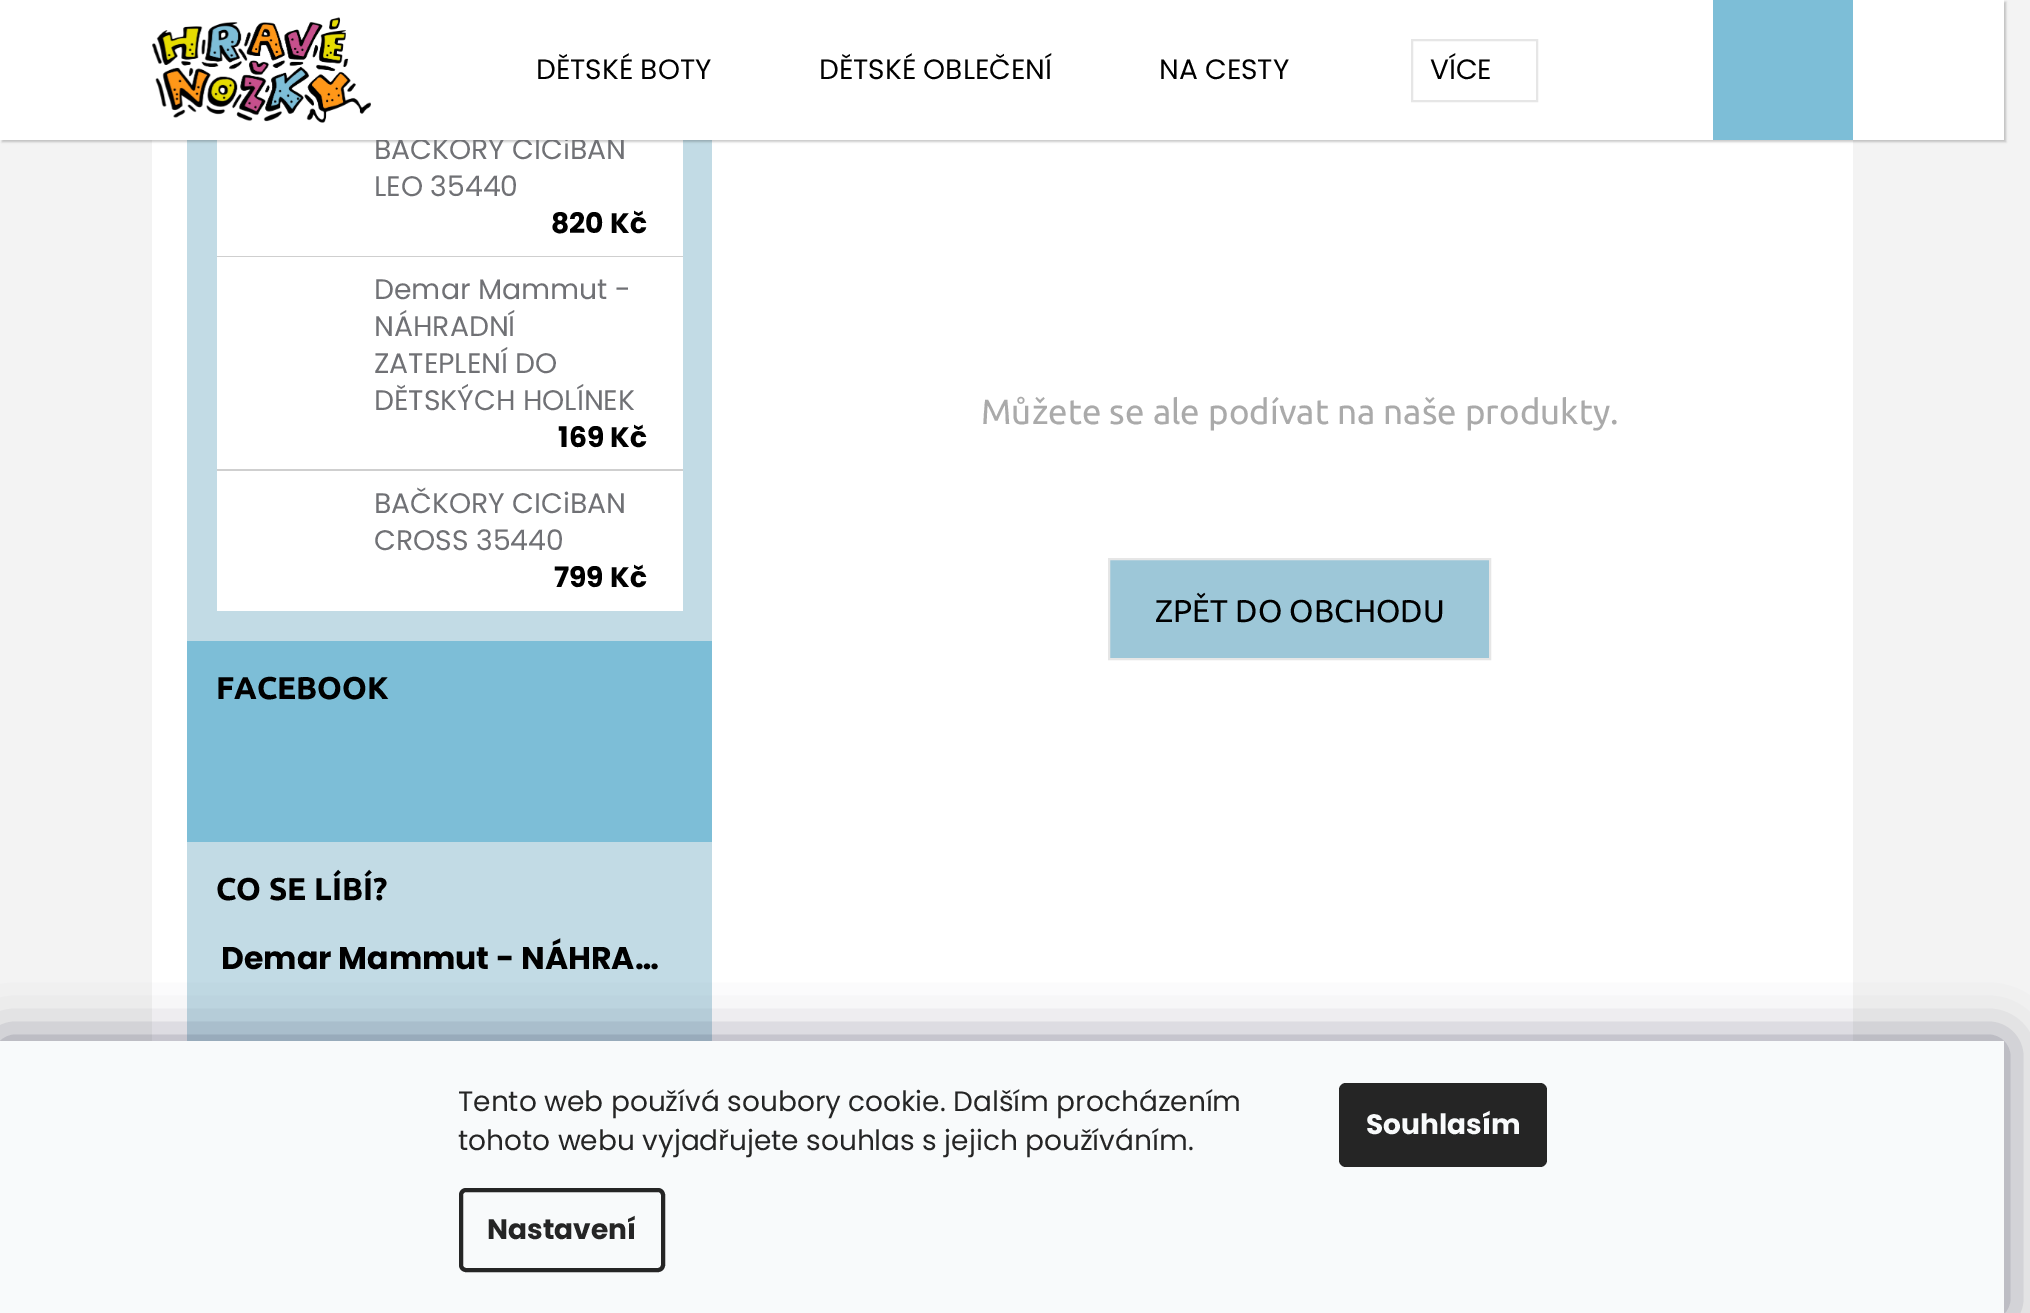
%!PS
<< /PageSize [2030 1313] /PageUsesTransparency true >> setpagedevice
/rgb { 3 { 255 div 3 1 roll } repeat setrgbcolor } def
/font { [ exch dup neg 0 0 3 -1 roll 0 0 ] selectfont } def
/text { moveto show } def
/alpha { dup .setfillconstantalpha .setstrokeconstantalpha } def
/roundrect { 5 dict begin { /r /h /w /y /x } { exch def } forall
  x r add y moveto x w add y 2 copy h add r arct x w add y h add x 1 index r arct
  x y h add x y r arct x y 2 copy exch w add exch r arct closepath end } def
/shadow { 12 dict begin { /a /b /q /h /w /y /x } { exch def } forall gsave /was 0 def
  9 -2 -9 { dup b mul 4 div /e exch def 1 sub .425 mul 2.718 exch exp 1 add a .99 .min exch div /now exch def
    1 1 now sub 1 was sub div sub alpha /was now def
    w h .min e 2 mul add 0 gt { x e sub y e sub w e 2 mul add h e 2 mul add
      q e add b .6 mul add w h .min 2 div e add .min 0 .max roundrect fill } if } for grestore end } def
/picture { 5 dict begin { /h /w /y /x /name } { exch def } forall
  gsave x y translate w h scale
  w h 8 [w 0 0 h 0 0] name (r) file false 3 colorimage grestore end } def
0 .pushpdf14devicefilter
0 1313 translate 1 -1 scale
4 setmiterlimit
243 243 243 rgb
0 0 2030 1313 rectfill
255 255 255 rgb
152 140 1701 901 rectfill
194 219 229 rgb
187 140 525 501 rectfill
255 255 255 rgb
217 140 466 116 rectfill
0 0 0 rgb
2 2 2004 140 0 1 0.2 shadow
207 207 207 rgb
217 256 466 1 rectfill
255 255 255 rgb
217 257 466 212 rectfill
207 207 207 rgb
217 469 466 2 rectfill
255 255 255 rgb
217 471 466 140 rectfill
125 190 215 rgb
187 641 525 201 rectfill
194 219 229 rgb
187 842 525 199 rectfill
157 199 216 rgb
1109 559 moveto 381 0 rlineto 0 100 rlineto -381 0 rlineto closepath gsave fill grestore
230 230 230 rgb
2 setlinewidth
stroke
27 25 57 rgb
0 1041 2004 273 0 26 0.5 shadow
248 250 251 rgb
0 1041 2004 272 rectfill
37 37 37 rgb
4 setlinewidth
461 1190 202 80 5 roundrect stroke
1339 1083 208 84 7 roundrect fill
/Poppins-Regular 28.25 font
112 113 117 rgb
(BAČKORY CICiBAN) 374 159 text
255 255 255 rgb
0 0 2004 140 rectfill
125 190 215 rgb
1713 0 140 140 rectfill
230 230 230 rgb
2 setlinewidth
1412 40 125 61 rectstroke
/Poppins-Regular 28 font
0 0 0 rgb
(VÍCE) 1430 79 text
(NA CESTY) 1159 79 text
(DĚTSKÉ OBLEČENÍ) 819 79 text
(DĚTSKÉ BOTY) 536 79 text
(img_01.rgb) 152 17 219 106 picture
/Poppins-Regular 28.25 font
112 113 117 rgb
(LEO 35440) 374 196 text
/Poppins-Bold 28.25 font
0 0 0 rgb
(820 Kč) 551 233 text
/Poppins-Regular 28.25 font
112 113 117 rgb
(Demar Mammut -) 374 299 text
(NÁHRADNÍ) 374 336 text
(ZATEPLENÍ DO) 374 373 text
(DĚTSKÝCH HOLÍNEK) 374 410 text
/Poppins-Bold 28.25 font
0 0 0 rgb
(169 Kč) 558 447 text
/Poppins-Regular 28.25 font
112 113 117 rgb
(BAČKORY CICiBAN) 374 513 text
(CROSS 35440) 374 550 text
/Poppins-Bold 28.25 font
0 0 0 rgb
(799 Kč) 554 587 text
/Ubuntu-Bold 31.5 font
(FACEBOOK) 216 699 text
(CO SE LÍBÍ?) 216 900 text
/Poppins-Bold 31.5 font
(Demar Mammut - NÁHRA…) 221 969 text
/Ubuntu-Regular 35 font
170 170 170 rgb
(Můžete se ale podívat na naše produkty.) 981 424 text
/Ubuntu-Regular 31.5 font
0 0 0 rgb
(ZPĚT DO OBCHODU) 1155 622 text
/Poppins-Regular 28 font
37 37 37 rgb
(Tento web používá soubory cookie. Dalším procházením) 458 1111 text
(tohoto webu vyjadřujete souhlas s jejich používáním.) 458 1150 text
/Poppins-Bold 28 font
(Nastavení) 487 1239 text
248 250 251 rgb
(Souhlasím) 1366 1134 text
.poppdf14devicefilter showpage
